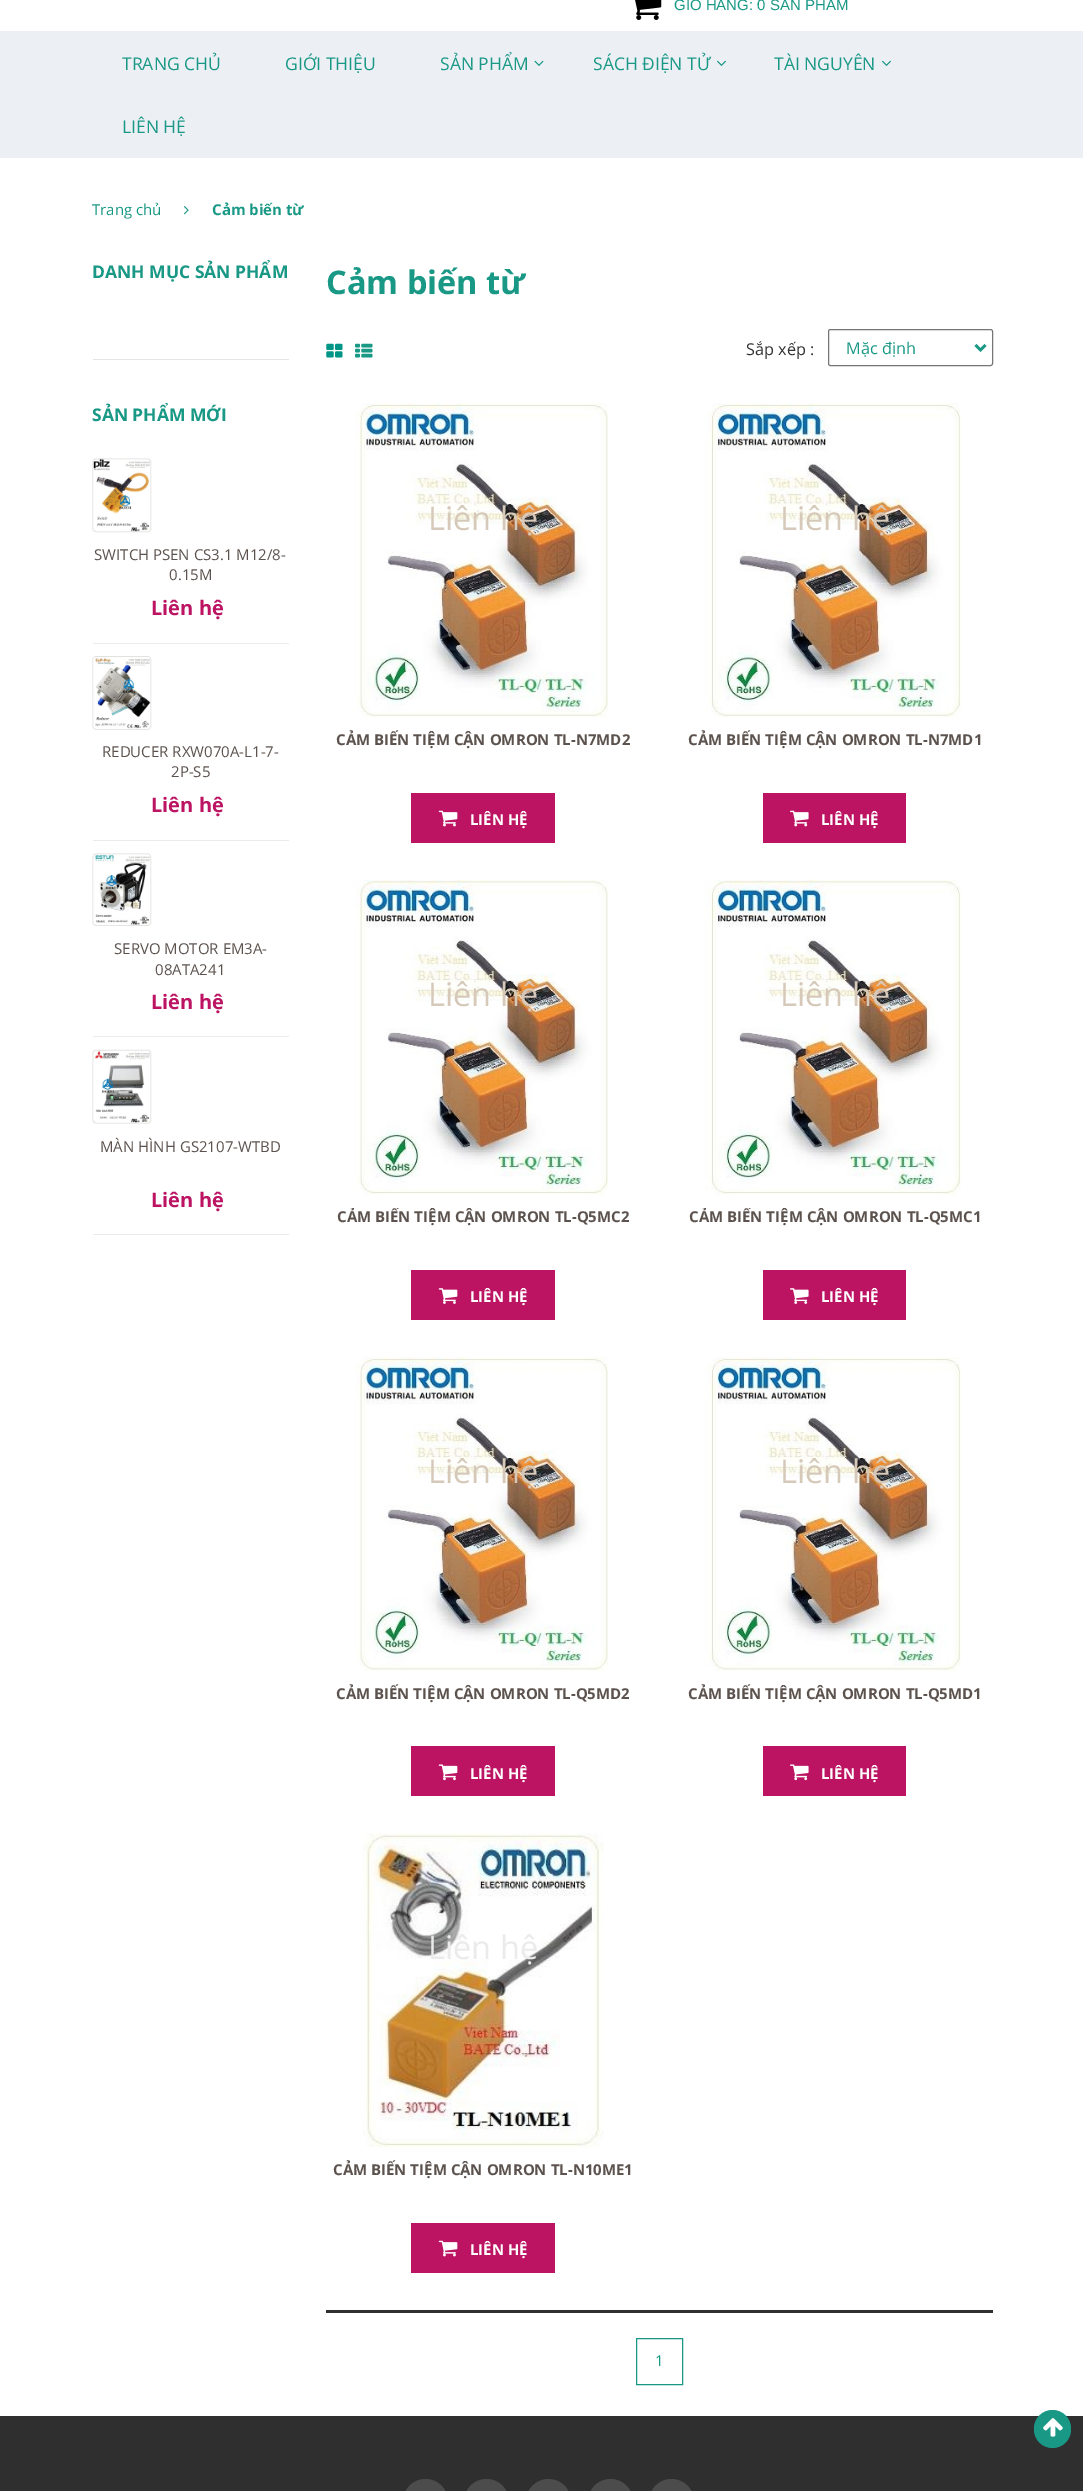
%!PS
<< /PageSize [1083 2491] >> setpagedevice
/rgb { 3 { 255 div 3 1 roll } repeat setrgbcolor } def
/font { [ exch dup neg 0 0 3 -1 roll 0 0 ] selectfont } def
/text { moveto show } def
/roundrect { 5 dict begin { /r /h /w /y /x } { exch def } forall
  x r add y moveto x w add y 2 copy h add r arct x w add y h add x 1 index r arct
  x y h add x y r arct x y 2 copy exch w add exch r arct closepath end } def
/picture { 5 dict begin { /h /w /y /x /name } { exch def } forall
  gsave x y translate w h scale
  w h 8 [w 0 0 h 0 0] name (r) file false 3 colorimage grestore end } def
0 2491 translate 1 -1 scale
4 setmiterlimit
255 255 255 rgb
0 0 1083 2491 rectfill
(img_01.rgb) 635 0 27 20 picture
236 240 245 rgb
0 31 1083 127 rectfill
(img_02.rgb) 534 60 10 6 picture
(img_03.rgb) 717 60 9 6 picture
(img_03.rgb) 882 60 9 6 picture
(img_04.rgb) 183 206 6 9 picture
229 229 229 rgb
93 359 196 1 rectfill
235 235 235 rgb
93 643 196 1 rectfill
(img_05.rgb) 92 458 60 75 picture
93 840 196 1 rectfill
(img_06.rgb) 92 656 60 74 picture
93 1036 196 1 rectfill
(img_07.rgb) 92 853 60 73 picture
93 1234 196 1 rectfill
(img_08.rgb) 92 1049 60 75 picture
(img_09.rgb) 326 343 17 15 picture
(img_10.rgb) 355 343 18 15 picture
118 118 118 rgb
828.5 329.5 164 36 2 roundrect stroke
25 152 133 rgb
2.5 setlinewidth
975.5 345 moveto 5 5 rlineto 5 -5 rlineto stroke
(img_11.rgb) 354 403 255 314 picture
188 20 99 rgb
411 793 144 50 rectfill
(img_12.rgb) 438 810 20 17 picture
(img_13.rgb) 705 403 256 314 picture
763 793 143 50 rectfill
(img_14.rgb) 790 810 19 17 picture
(img_15.rgb) 354 879 255 316 picture
411 1270 144 50 rectfill
(img_16.rgb) 438 1288 20 16 picture
(img_17.rgb) 705 879 256 316 picture
763 1270 143 50 rectfill
(img_18.rgb) 790 1288 19 16 picture
(img_19.rgb) 354 1357 255 314 picture
411 1746 144 50 rectfill
(img_20.rgb) 438 1764 20 17 picture
(img_21.rgb) 705 1357 256 314 picture
763 1746 143 50 rectfill
(img_22.rgb) 790 1764 19 17 picture
(img_23.rgb) 362 1833 242 315 picture
411 2223 144 50 rectfill
(img_12.rgb) 438 2240 20 17 picture
47 47 47 rgb
326 2310 667 3 rectfill
25 152 133 rgb
1 setlinewidth
636.5 2338.5 46 46 rectstroke
47 47 47 rgb
0 2416 1083 75 rectfill
76 76 76 rgb
403 2479 45 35 22.5 roundrect fill
464 2479 45 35 22.5 roundrect fill
526 2479 45 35 22.5 roundrect fill
588 2479 45 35 22.5 roundrect fill
649 2479 45 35 22.5 roundrect fill
25 152 133 rgb
1034 2410 37 38 18.5 roundrect fill
(img_24.rgb) 1043 2418 20 19 picture
/LiberationSans-Regular 15 font
(GIỎ HÀNG: 0 SẢN PHẨM) 674 10 text
/OpenSans-Regular 17.5 font
(TRANG CHỦ) 122 70 text
(GIỚI THIỆU) 285 70 text
(SẢN PHẨM) 440 70 text
(SÁCH ĐIỆN TỬ) 593 70 text
(TÀI NGUYÊN) 774 70 text
(LIÊN HỆ) 122 133 text
/OpenSans-Regular 15 font
(Trang chủ) 92 215 text
/OpenSans-Bold 15 font
(Cảm biến từ) 212 215 text
/OpenSans-Bold 17.5 font
(DANH MỤC SẢN PHẨM) 92 278 text
(SẢN PHẨM MỚI) 92 421 text
/OpenSans-Regular 15 font
92 83 78 rgb
(SWITCH PSEN CS3.1 M12/8-) 94 560 text
(0.15M) 169 580 text
/OpenSans-Bold 20 font
188 20 99 rgb
(Liên hệ) 151 615 text
/OpenSans-Regular 15 font
92 83 78 rgb
(REDUCER RXW070A-L1-7-) 102 757 text
(2P-S5) 171 777 text
/OpenSans-Bold 20 font
188 20 99 rgb
(Liên hệ) 151 812 text
/OpenSans-Regular 15 font
92 83 78 rgb
(SERVO MOTOR EM3A-) 114 954 text
(08ATA241) 155 975 text
/OpenSans-Bold 20 font
188 20 99 rgb
(Liên hệ) 151 1009 text
/OpenSans-Regular 15 font
92 83 78 rgb
(MÀN HÌNH GS2107-WTBD) 100 1152 text
/OpenSans-Bold 20 font
188 20 99 rgb
(Liên hệ) 151 1207 text
/OpenSans-Bold 32.5 font
25 152 133 rgb
(Cảm biến từ) 326 294 text
/OpenSans-Regular 16.25 font
51 51 51 rgb
(Sắp xếp :) 746 355 text
25 152 133 rgb
(Mặc định) 846 354 text
/OpenSans-Regular 32.5 font
214 201 186 rgb
(Liên hệ) 428 530 text
/OpenSans-Bold 15 font
92 83 78 rgb
(CẢM BIẾN TIỆM CẬN OMRON TL-N7MD2) 336 745 text
255 255 255 rgb
(LIÊN HỆ) 470 825 text
/OpenSans-Regular 32.5 font
214 201 186 rgb
(Liên hệ) 780 530 text
/OpenSans-Bold 15 font
92 83 78 rgb
(CẢM BIẾN TIỆM CẬN OMRON TL-N7MD1) 688 745 text
255 255 255 rgb
(LIÊN HỆ) 821 825 text
/OpenSans-Regular 32.5 font
214 201 186 rgb
(Liên hệ) 428 1006 text
gsave
326 1208 314 43 rectclip
/OpenSans-Bold 15 font
92 83 78 rgb
(CẢM BIẾN TIỆM CẬN OMRON TL-Q5MC2) 337 1222 text
grestore
/OpenSans-Bold 15 font
255 255 255 rgb
(LIÊN HỆ) 470 1302 text
/OpenSans-Regular 32.5 font
214 201 186 rgb
(Liên hệ) 780 1006 text
gsave
678 1208 315 43 rectclip
/OpenSans-Bold 15 font
92 83 78 rgb
(CẢM BIẾN TIỆM CẬN OMRON TL-Q5MC1) 689 1222 text
grestore
/OpenSans-Bold 15 font
255 255 255 rgb
(LIÊN HỆ) 821 1302 text
/OpenSans-Regular 32.5 font
214 201 186 rgb
(Liên hệ) 428 1483 text
/OpenSans-Bold 15 font
92 83 78 rgb
(CẢM BIẾN TIỆM CẬN OMRON TL-Q5MD2) 336 1699 text
255 255 255 rgb
(LIÊN HỆ) 470 1779 text
/OpenSans-Regular 32.5 font
214 201 186 rgb
(Liên hệ) 780 1483 text
/OpenSans-Bold 15 font
92 83 78 rgb
(CẢM BIẾN TIỆM CẬN OMRON TL-Q5MD1) 688 1699 text
255 255 255 rgb
(LIÊN HỆ) 821 1779 text
/OpenSans-Regular 32.5 font
235 235 235 rgb
(Liên hệ) 428 1959 text
/OpenSans-Bold 15 font
92 83 78 rgb
(CẢM BIẾN TIỆM CẬN OMRON TL-N10ME1) 333 2175 text
255 255 255 rgb
(LIÊN HỆ) 470 2255 text
/OpenSans-Regular 15 font
25 152 133 rgb
(1) 655 2366 text
showpage
